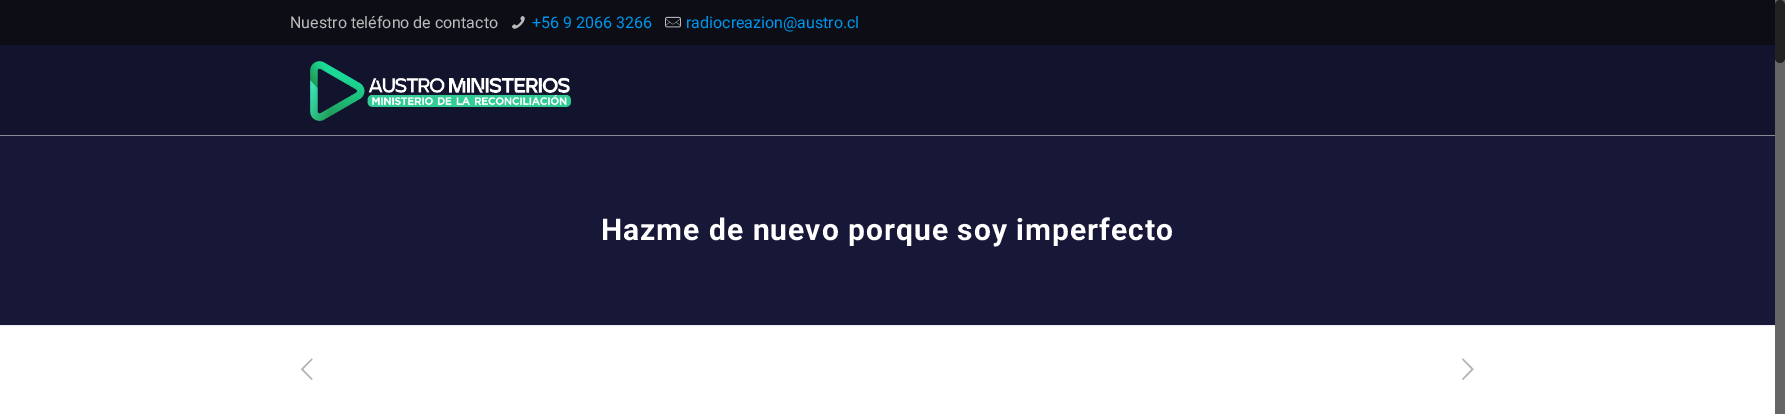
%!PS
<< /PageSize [1785 414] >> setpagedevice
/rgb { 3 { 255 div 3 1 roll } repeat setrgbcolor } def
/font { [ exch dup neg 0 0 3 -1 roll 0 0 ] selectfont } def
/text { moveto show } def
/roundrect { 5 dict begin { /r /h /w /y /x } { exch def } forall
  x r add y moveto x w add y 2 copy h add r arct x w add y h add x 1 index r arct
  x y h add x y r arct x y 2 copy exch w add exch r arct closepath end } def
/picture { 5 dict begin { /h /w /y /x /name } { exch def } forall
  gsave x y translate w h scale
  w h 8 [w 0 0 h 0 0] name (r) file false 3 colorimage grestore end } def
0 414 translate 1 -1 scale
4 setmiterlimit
255 255 255 rgb
0 0 1785 414 rectfill
12 13 21 rgb
0 0 1775 45 rectfill
(img_01.rgb) 512 16 13 13 picture
(img_02.rgb) 665 16 16 12 picture
18 19 45 rgb
0 45 1775 90 rectfill
137 137 150 rgb
0 135 1775 1 rectfill
(img_03.rgb) 310 61 261 60 picture
23 24 56 rgb
0 136 1775 189 rectfill
(img_04.rgb) 0 325 1775 2 picture
(img_05.rgb) 301 358 12 22 picture
(img_06.rgb) 1462 358 12 22 picture
102 102 102 rgb
1775 0 10 414 rectfill
34 34 34 rgb
1775 0 10 63 5 roundrect fill
/Roboto-Regular 16 font
187 187 187 rgb
(Nuestro teléfono de contacto) 290 28 text
0 149 235 rgb
(+56 9 2066 3266) 532 28 text
(radiocreazion@austro.cl) 686 28 text
/Roboto-Bold 30 font
255 255 255 rgb
601 240 moveto 1 0 (Hazme de nuevo porque soy imperfecto) ashow
showpage
